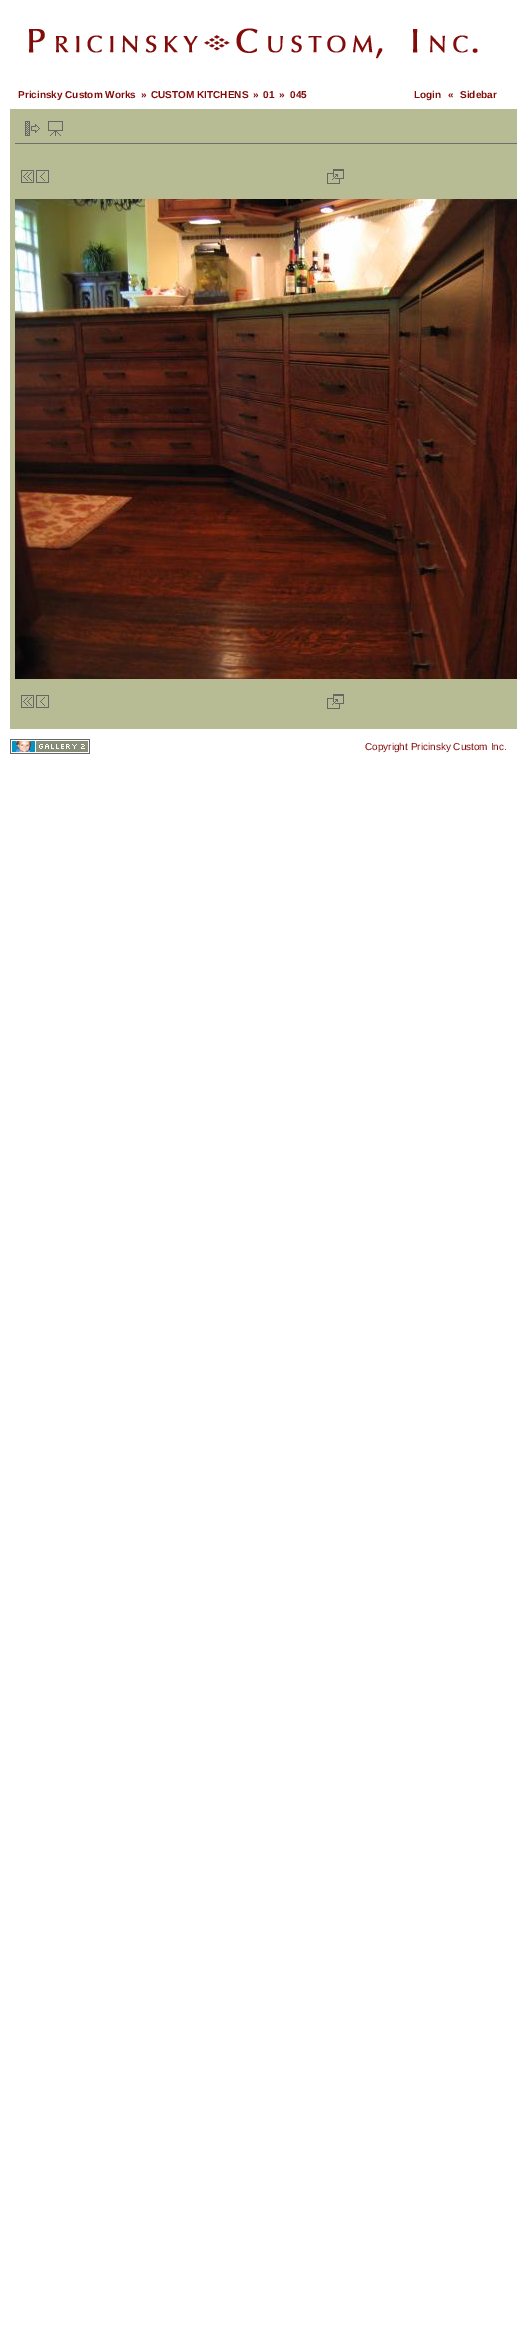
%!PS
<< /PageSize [517 2340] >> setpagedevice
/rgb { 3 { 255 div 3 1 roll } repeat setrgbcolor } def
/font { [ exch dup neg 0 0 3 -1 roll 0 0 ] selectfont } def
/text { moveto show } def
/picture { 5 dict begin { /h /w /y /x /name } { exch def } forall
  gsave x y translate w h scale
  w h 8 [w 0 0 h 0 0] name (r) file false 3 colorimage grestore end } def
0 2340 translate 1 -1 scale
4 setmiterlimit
255 255 255 rgb
0 0 517 2340 rectfill
(img_01.rgb) 29 28 449 31 picture
183 188 148 rgb
10 109 507 620 rectfill
111 111 111 rgb
15 143 502 1 rectfill
(img_02.rgb) 25 121 15 15 picture
(img_03.rgb) 48 121 15 15 picture
(img_04.rgb) 21 170 13 13 picture
(img_05.rgb) 36 170 13 13 picture
(img_06.rgb) 327 169 17 15 picture
(img_07.rgb) 15 199 502 480 picture
(img_04.rgb) 21 695 13 13 picture
(img_05.rgb) 36 695 13 13 picture
(img_06.rgb) 327 694 17 15 picture
(img_08.rgb) 10 739 80 15 picture
/LiberationSans-Bold 10 font
130 12 10 rgb
(Pricinsky Custom Works) 18 98 text
(») 141 98 text
(CUSTOM KITCHENS) 151 98 text
(») 253 98 text
(01) 263 98 text
(») 279 98 text
(045) 290 98 text
(Login) 414 98 text
(«) 448 98 text
(Sidebar) 460 98 text
/LiberationSans-Regular 10 font
(Copyright Pricinsky Custom Inc.) 365 750 text
showpage
